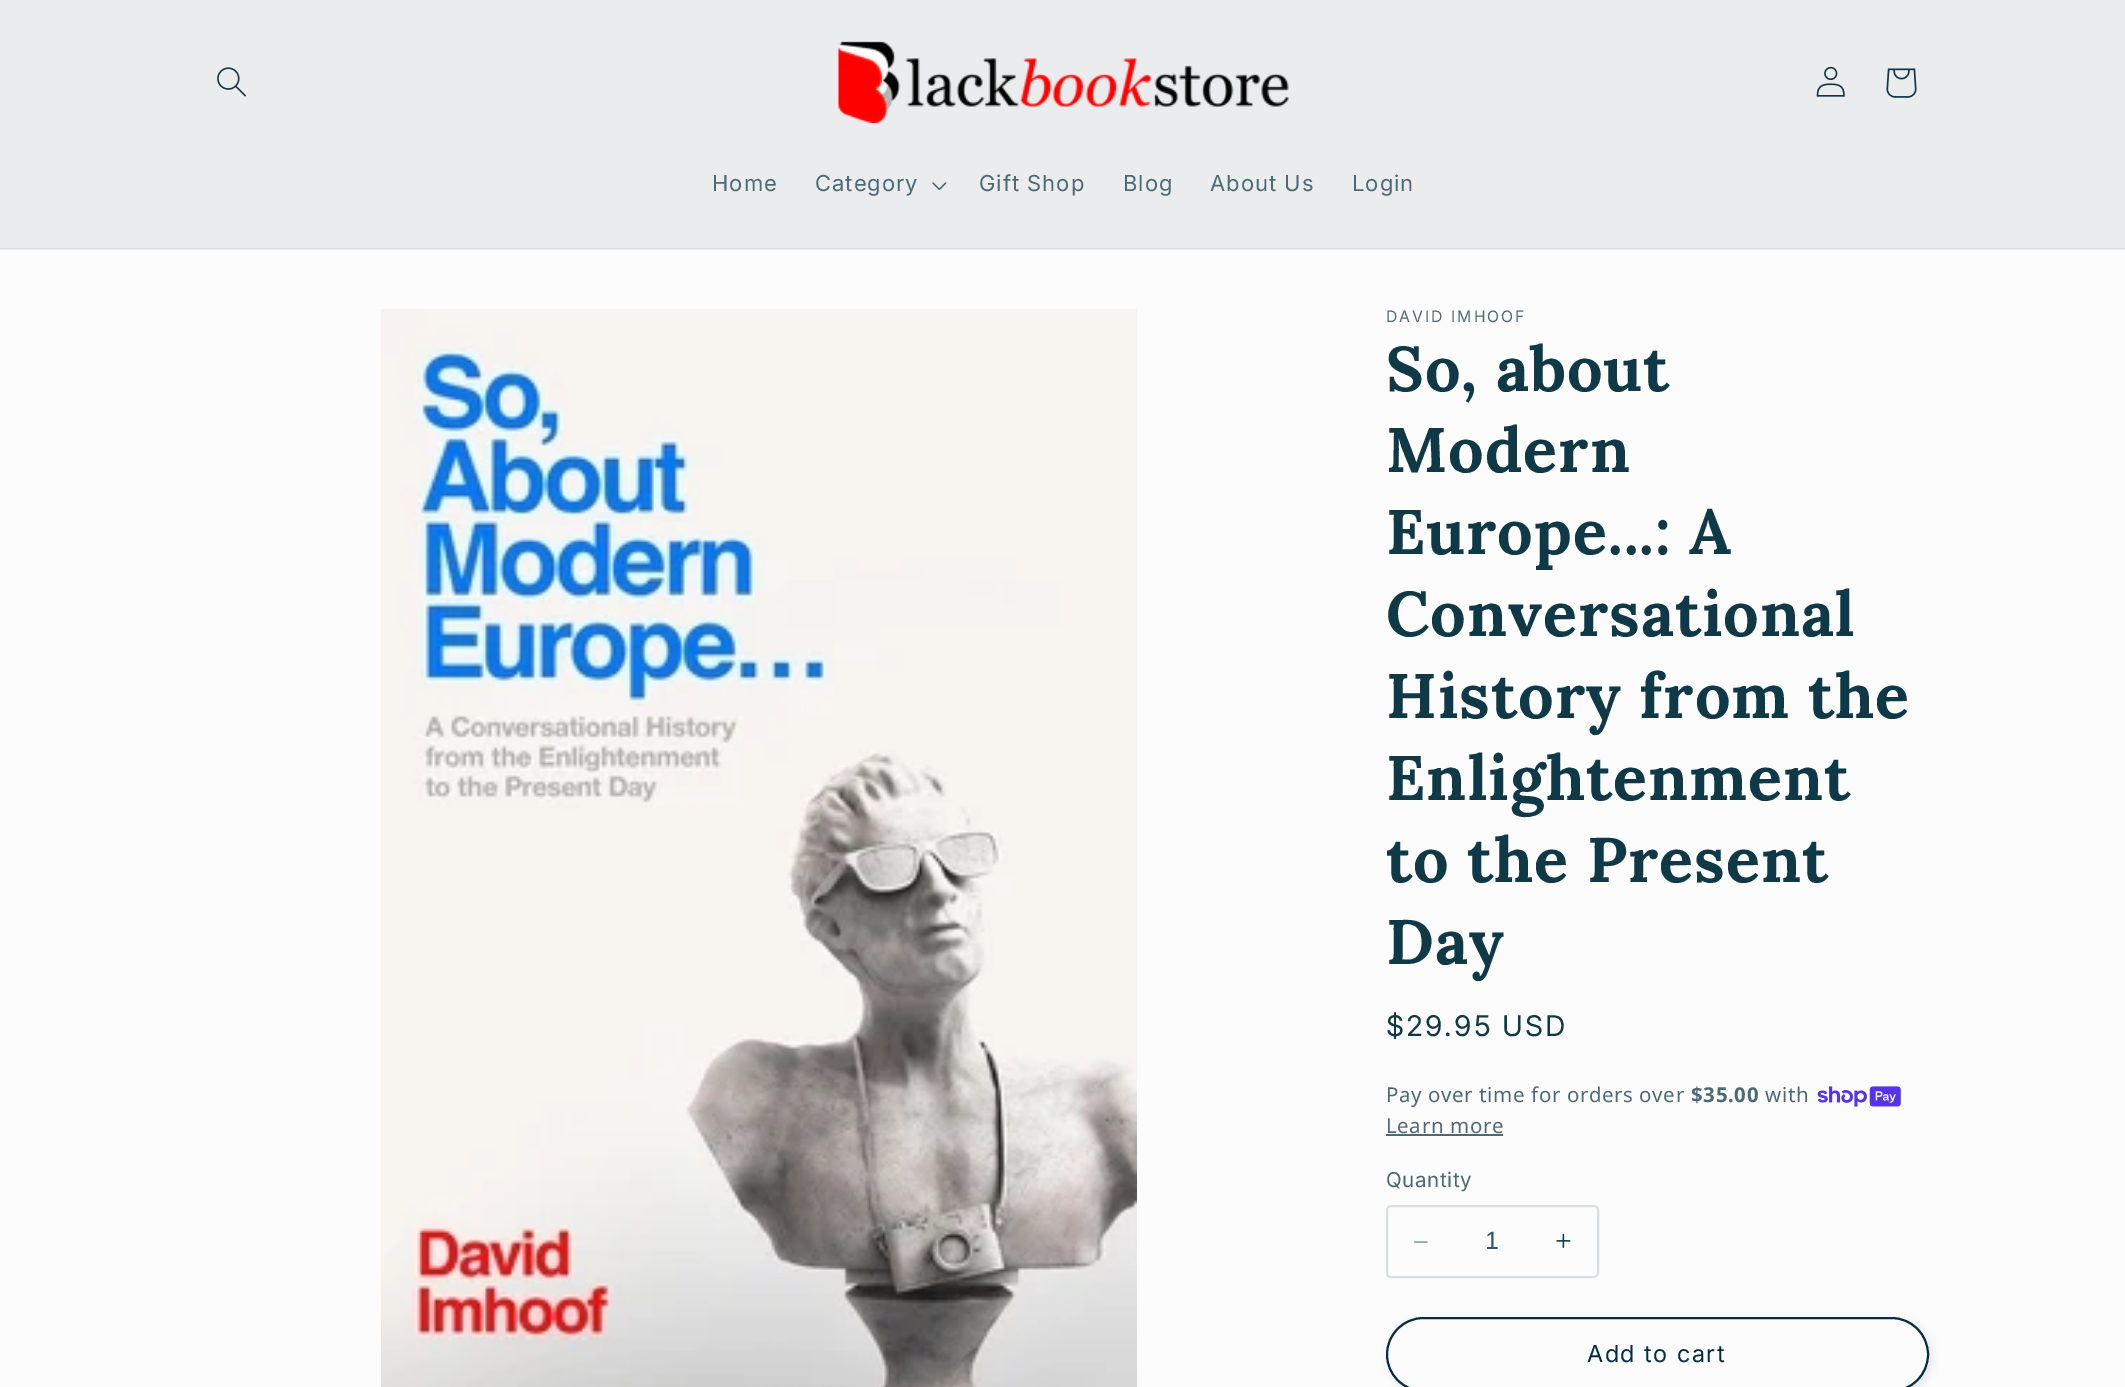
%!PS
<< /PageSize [2125 1387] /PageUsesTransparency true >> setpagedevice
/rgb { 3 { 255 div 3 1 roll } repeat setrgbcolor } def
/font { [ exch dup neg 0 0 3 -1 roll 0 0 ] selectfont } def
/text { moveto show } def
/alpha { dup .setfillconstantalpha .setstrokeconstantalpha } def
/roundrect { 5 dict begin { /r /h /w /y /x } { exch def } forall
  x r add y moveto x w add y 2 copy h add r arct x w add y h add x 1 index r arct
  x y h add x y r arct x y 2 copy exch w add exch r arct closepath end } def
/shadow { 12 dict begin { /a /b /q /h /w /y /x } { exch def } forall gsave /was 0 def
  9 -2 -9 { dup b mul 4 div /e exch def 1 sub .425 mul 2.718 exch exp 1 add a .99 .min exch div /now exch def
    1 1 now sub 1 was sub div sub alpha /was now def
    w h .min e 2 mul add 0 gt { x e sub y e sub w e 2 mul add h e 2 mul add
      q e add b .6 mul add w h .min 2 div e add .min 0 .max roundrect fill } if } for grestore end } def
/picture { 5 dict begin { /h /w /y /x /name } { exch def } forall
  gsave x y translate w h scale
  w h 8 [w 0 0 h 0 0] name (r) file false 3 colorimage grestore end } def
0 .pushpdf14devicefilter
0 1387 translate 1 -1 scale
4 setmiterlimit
252 252 252 rgb
0 0 2125 1387 rectfill
233 236 238 rgb
0 249 2125 1 rectfill
235 236 237 rgb
0 0 2125 248 rectfill
217 222 224 rgb
0 248 2125 1 rectfill
(img_01.rgb) 217 67 29 30 picture
(img_02.rgb) 838 41 451 82 picture
(img_03.rgb) 1816 66 29 31 picture
(img_04.rgb) 1886 68 31 30 picture
(img_05.rgb) 932 182 15 9 picture
(img_06.rgb) 381 309 756 1078 picture
(img_07.rgb) 1817 1086 84 21 picture
75 106 117 rgb
1386 1134 117 2 rectfill
(img_08.rgb) 1413 1241 15 2 picture
(img_09.rgb) 1556 1233 15 15 picture
217 223 225 rgb
2 setlinewidth
1387 1206 211 71 4 roundrect stroke
16 57 72 rgb
1389 1320 543 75 37.5 4 0.1 shadow
252 252 252 rgb
1386 1317 543 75 37.5 roundrect fill
1387 1318 541 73 36.5 roundrect stroke
5 44 70 rgb
1387 1318 541 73 36.5 roundrect stroke
/Inter-Regular 22 font
75 106 117 rgb
712 191 moveto 1 0 (Home) ashow
815 191 moveto 1 0 (Category) ashow
979 191 moveto 1 0 (Gift Shop) ashow
1123 191 moveto 1 0 (Blog) ashow
1210 191 moveto 1 0 (About Us) ashow
1352 191 moveto 1 0 (Login) ashow
/Inter-Regular 15.75 font
1386 322 moveto 2 0 (DAVID IMHOOF) ashow
/Lora-Bold 63 font
16 57 72 rgb
1386 391 moveto 1 0 (So, about) ashow
1386 472 moveto 1 0 (Modern) ashow
1386 554 moveto 1 0 (Europe...: A) ashow
1386 636 moveto 1 0 (Conversational) ashow
1386 718 moveto 1 0 (History from the) ashow
1386 800 moveto 1 0 (Enlightenment) ashow
1386 882 moveto 1 0 (to the Present) ashow
1386 964 moveto 1 0 (Day) ashow
/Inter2-Regular 28.5 font
1386 1036 moveto 2 0 ($29.95 USD) ashow
/NotoSans-Regular 20.5 font
75 106 117 rgb
1386 1102 moveto 0.6 0 (Pay over time for orders over) ashow
/NotoSans-Bold 20.5 font
1691 1102 moveto 0.6 0 ($35.00) ashow
/NotoSans-Regular 20.5 font
1765 1102 moveto 0.6 0 (with) ashow
1386 1133 moveto 0.6 0 (Learn more) ashow
/Inter-Regular 20.5 font
1386 1187 moveto 0.6 0 (Quantity) ashow
/LiberationSans-Regular 25 font
51 86 99 rgb
(1) 1485 1249 text
/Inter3-Regular 23.5 font
5 44 70 rgb
1587 1362 moveto 1.5 0 (Add to cart) ashow
.poppdf14devicefilter showpage
